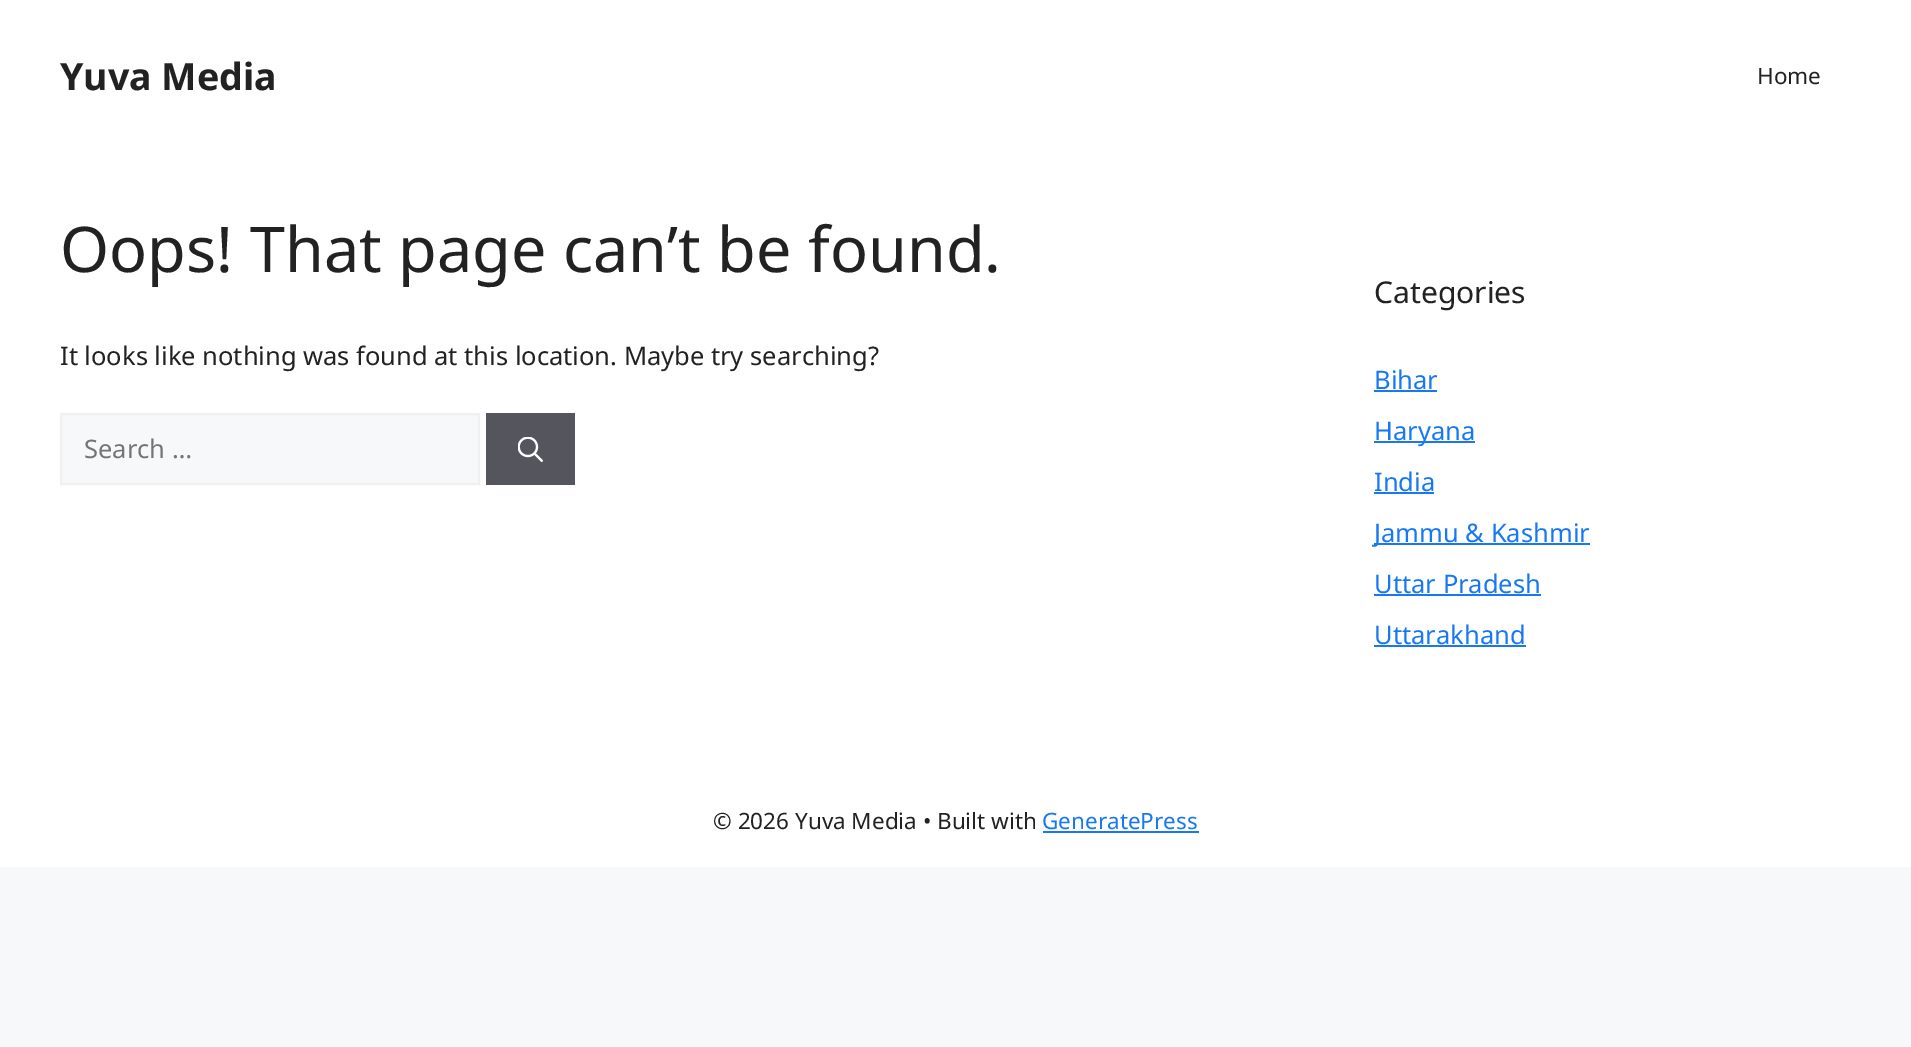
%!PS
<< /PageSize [1911 1047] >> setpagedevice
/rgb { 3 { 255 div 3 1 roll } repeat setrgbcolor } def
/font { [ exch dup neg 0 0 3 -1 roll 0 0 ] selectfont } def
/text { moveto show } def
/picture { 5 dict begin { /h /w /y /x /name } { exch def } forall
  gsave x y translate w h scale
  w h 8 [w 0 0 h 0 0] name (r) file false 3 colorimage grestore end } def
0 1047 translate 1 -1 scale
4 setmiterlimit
247 248 249 rgb
0 0 1911 1047 rectfill
255 255 255 rgb
0 0 1911 867 rectfill
247 248 249 rgb
61 414 moveto 418 0 rlineto 0 70 rlineto -418 0 rlineto closepath gsave fill grestore
240 240 240 rgb
2 setlinewidth
stroke
85 85 94 rgb
486 413 89 72 rectfill
(img_01.rgb) 518 437 25 25 picture
24 119 242 rgb
1374 390 63 2 rectfill
1374 441 101 2 rectfill
1374 492 60 2 rectfill
1374 543 216 2 rectfill
1374 594 167 2 rectfill
1374 645 152 2 rectfill
1043 831 156 2 rectfill
/NotoSans-Bold 37.5 font
34 34 34 rgb
(Yuva Media) 60 90 text
/NotoSans-Regular 22.5 font
(Home) 1757 84 text
/NotoSans-Regular 63 font
(Oops! That page can’t be found.) 60 272 text
/NotoSans-Regular 25.5 font
(It looks like nothing was found at this location. Maybe try searching?) 60 365 text
117 117 117 rgb
(Search …) 84 458 text
/NotoSans-Regular 30 font
34 34 34 rgb
(Categories) 1374 303 text
/NotoSans-Regular 25.5 font
24 119 242 rgb
(Bihar) 1374 389 text
(Haryana) 1374 440 text
(India) 1374 491 text
(Jammu & Kashmir) 1374 542 text
(Uttar Pradesh) 1374 593 text
(Uttarakhand) 1374 644 text
/NotoSans-Regular 22.5 font
34 34 34 rgb
(© 2026 Yuva Media • Built with) 713 829 text
24 119 242 rgb
(GeneratePress) 1042 829 text
showpage
